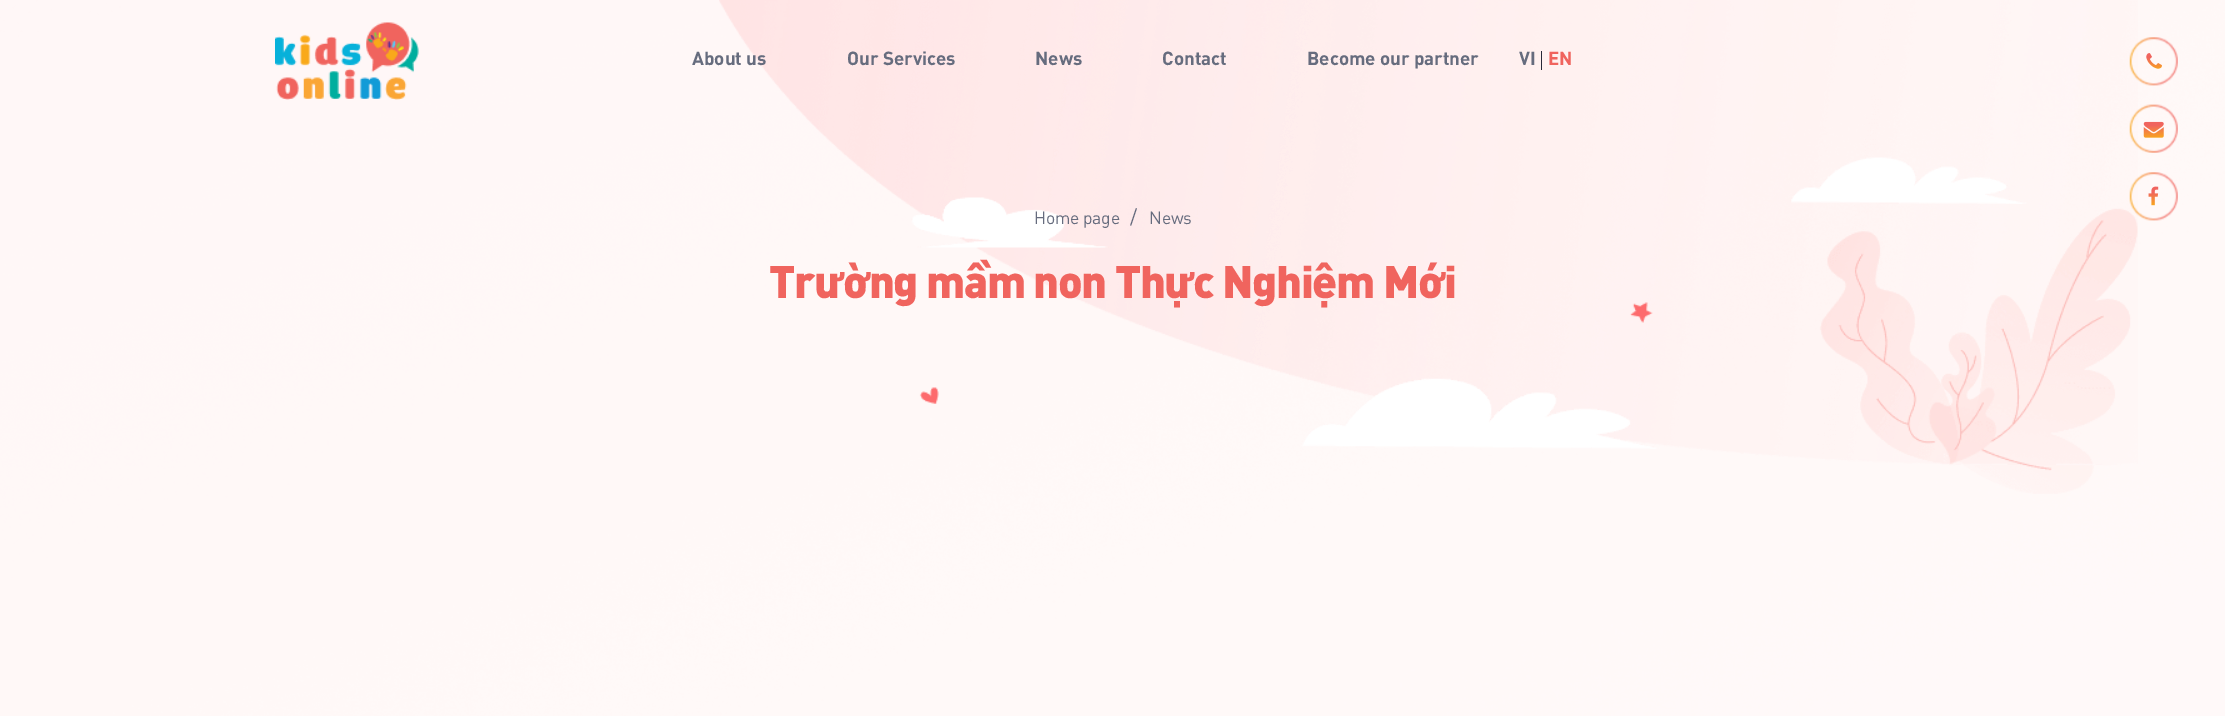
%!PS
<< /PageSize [2225 716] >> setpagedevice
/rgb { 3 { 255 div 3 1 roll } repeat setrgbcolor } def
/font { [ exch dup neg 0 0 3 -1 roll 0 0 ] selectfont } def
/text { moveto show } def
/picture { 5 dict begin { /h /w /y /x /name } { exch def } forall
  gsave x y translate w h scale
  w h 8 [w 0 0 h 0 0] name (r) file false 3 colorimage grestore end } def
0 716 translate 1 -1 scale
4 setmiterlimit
255 255 255 rgb
0 0 2225 716 rectfill
(img_08.rgb) 0 0 2225 716 picture
(img_01.rgb) 275 22 144 78 picture
(img_09.rgb) 719 0 1419 494 picture
40 42 57 rgb
1541 51 1 19 rectfill
(img_02.rgb) 2129 37 49 49 picture
(img_03.rgb) 2146 53 16 16 picture
(img_04.rgb) 2129 104 49 49 picture
(img_05.rgb) 2143 121 21 17 picture
(img_06.rgb) 2129 172 49 49 picture
(img_07.rgb) 2148 186 11 20 picture
/DIN-Bold 18.75 font
102 108 126 rgb
(About us) 692 65 text
(Our Services) 847 65 text
(News) 1035 65 text
(Contact) 1162 65 text
(Become our partner) 1307 65 text
(VI) 1519 65 text
240 100 94 rgb
(EN) 1548 65 text
/DIN-Regular 17.5 font
102 108 126 rgb
1034 224 moveto -0.25 0 (Home page) ashow
/DIN-Regular 20 font
(/) 1130 224 text
/DIN-Regular 17.5 font
1149 224 moveto -0.25 0 (News) ashow
/DIN-Black 45 font
240 100 94 rgb
769 298 moveto -1.35 0 (Trường mầm non Thực Nghiệm Mới) ashow
showpage
